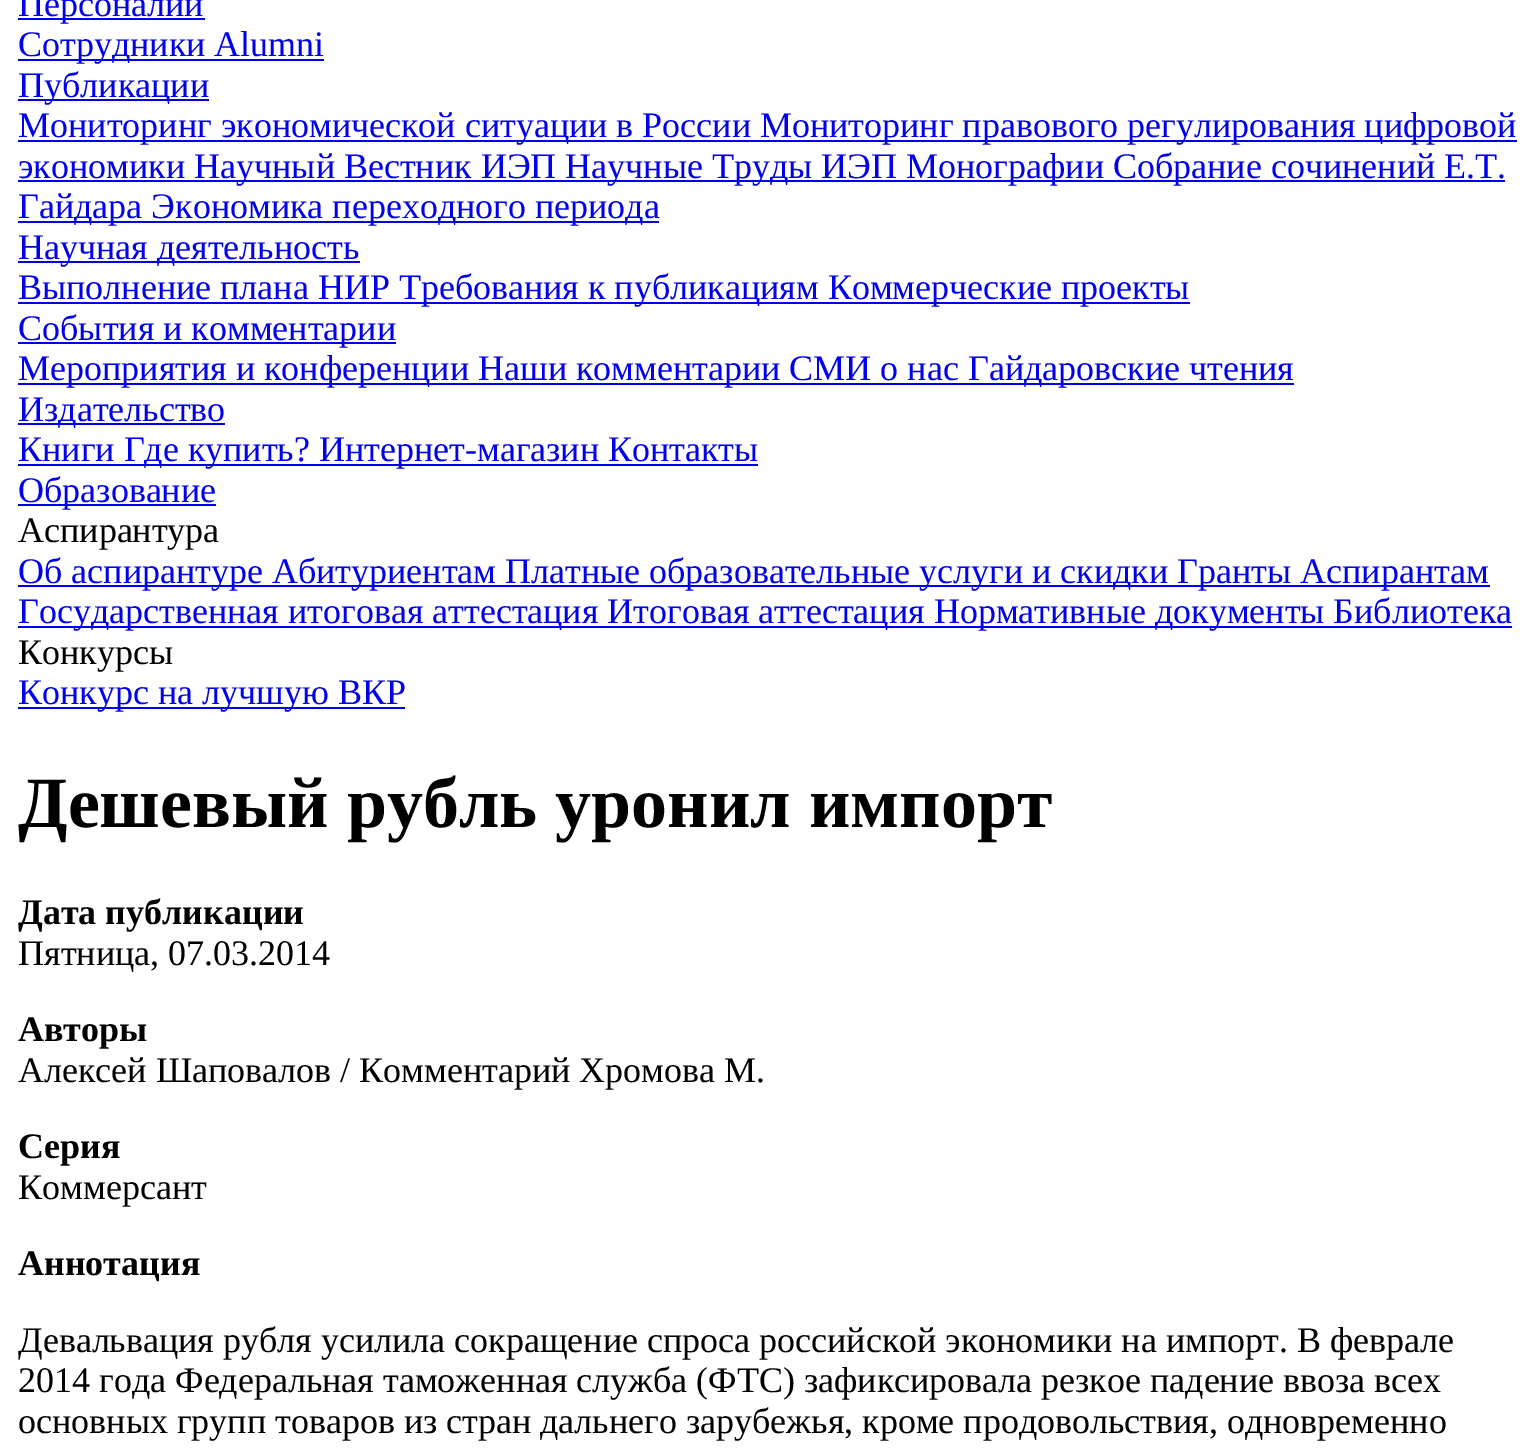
%!PS
<< /PageSize [1536 1449] >> setpagedevice
/rgb { 3 { 255 div 3 1 roll } repeat setrgbcolor } def
/font { [ exch dup neg 0 0 3 -1 roll 0 0 ] selectfont } def
/text { moveto show } def
0 1449 translate 1 -1 scale
4 setmiterlimit
255 255 255 rgb
0 0 1536 1449 rectfill
0 0 238 rgb
18 18 187 2 rectfill
18 59 306 2 rectfill
18 99 191 2 rectfill
18 140 1499 2 rectfill
18 180 1487 2 rectfill
18 221 641 2 rectfill
18 261 342 2 rectfill
18 302 1172 2 rectfill
18 342 378 2 rectfill
18 383 1276 2 rectfill
18 423 207 2 rectfill
18 464 740 2 rectfill
18 504 198 2 rectfill
18 585 1472 2 rectfill
18 626 1494 2 rectfill
18 707 387 2 rectfill
/LiberationSerif-Regular 36 font
(Персоналии) 18 16 text
(Сотрудники Alumni) 18 56 text
(Публикации) 18 97 text
(Мониторинг экономической ситуации в России Мониторинг правового регулирования цифровой) 18 137 text
(экономики Научный Вестник ИЭП Научные Труды ИЭП Монографии Собрание сочинений Е.Т.) 18 178 text
(Гайдара Экономика переходного периода) 18 218 text
(Научная деятельность) 18 259 text
(Выполнение плана НИР Требования к публикациям Коммерческие проекты) 18 299 text
(События и комментарии) 18 340 text
(Мероприятия и конференции Наши комментарии СМИ о нас Гайдаровские чтения) 18 380 text
(Издательство) 18 421 text
(Книги Где купить? Интернет-магазин Контакты) 18 461 text
(Образование) 18 502 text
0 0 0 rgb
(Аспирантура) 18 542 text
0 0 238 rgb
(Об аспирантуре Абитуриентам Платные образовательные услуги и скидки Гранты Аспирантам) 18 583 text
(Государственная итоговая аттестация Итоговая аттестация Нормативные документы Библиотека) 18 623 text
0 0 0 rgb
(Конкурсы) 18 664 text
0 0 238 rgb
(Конкурс на лучшую ВКР) 18 704 text
/LiberationSerif-Bold 72 font
0 0 0 rgb
(Дешевый рубль уронил импорт) 18 827 text
/LiberationSerif-Bold 36 font
(Дата публикации) 18 924 text
/LiberationSerif-Regular 36 font
(Пятница, 07.03.2014) 18 965 text
/LiberationSerif-Bold 36 font
(Авторы) 18 1041 text
/LiberationSerif-Regular 36 font
(Алексей Шаповалов / Комментарий Хромова М.) 18 1082 text
/LiberationSerif-Bold 36 font
(Серия) 18 1158 text
/LiberationSerif-Regular 36 font
(Коммерсант) 18 1199 text
/LiberationSerif-Bold 36 font
(Аннотация) 18 1275 text
/LiberationSerif-Regular 36 font
(Девальвация рубля усилила сокращение спроса российской экономики на импорт. В феврале) 18 1352 text
(2014 года Федеральная таможенная служба \(ФТС\) зафиксировала резкое падение ввоза всех) 18 1392 text
(основных групп товаров из стран дальнего зарубежья, кроме продовольствия, одновременно) 18 1433 text
showpage
